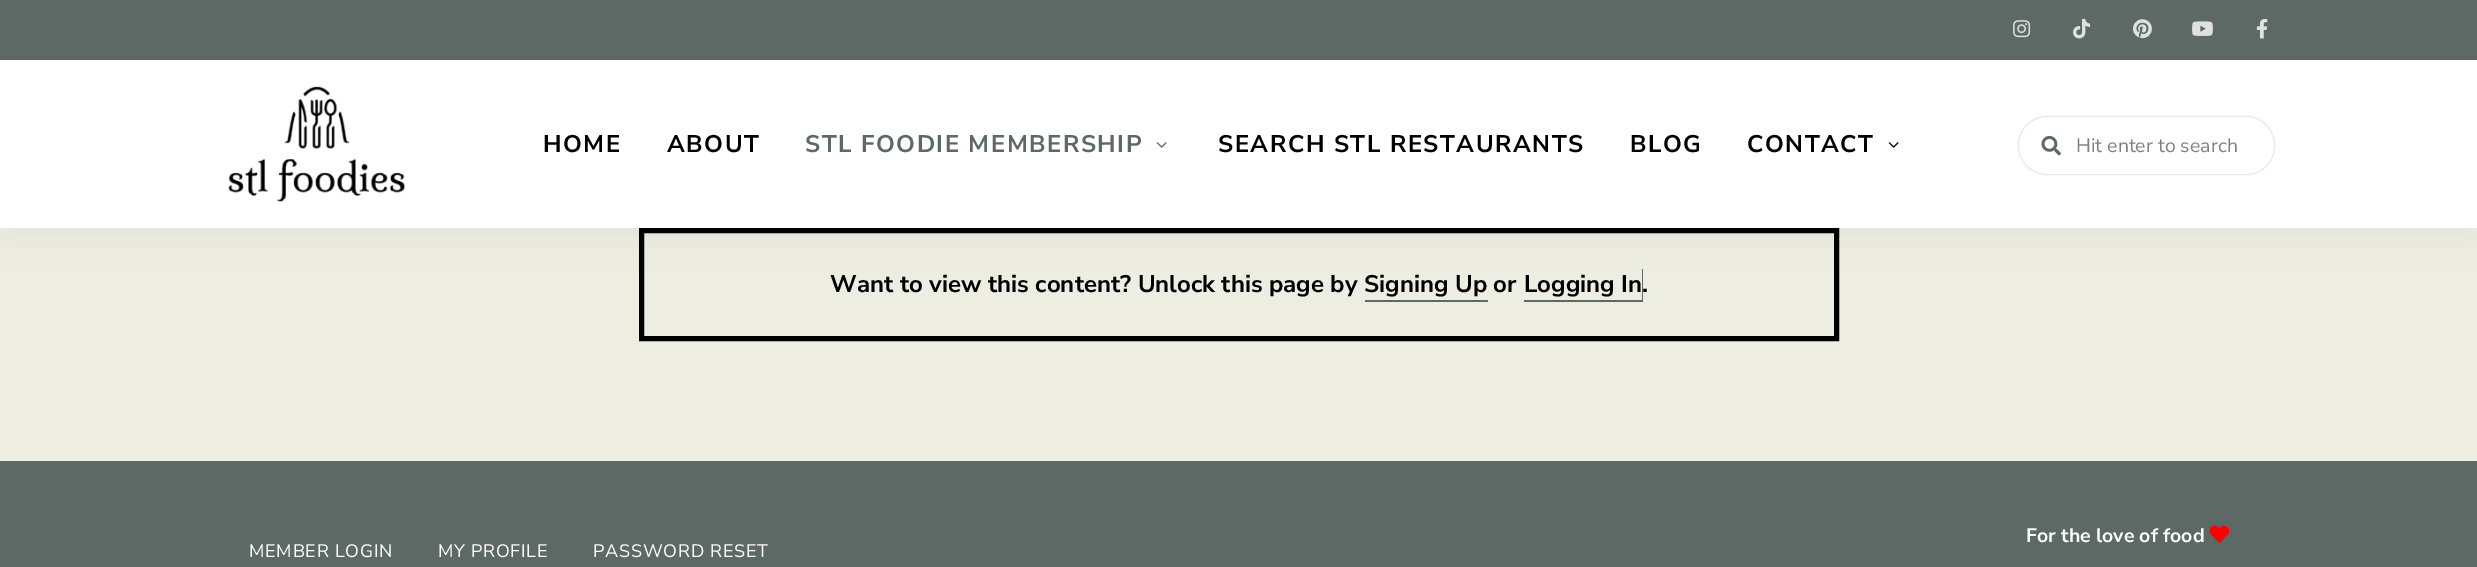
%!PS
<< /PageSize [2477 567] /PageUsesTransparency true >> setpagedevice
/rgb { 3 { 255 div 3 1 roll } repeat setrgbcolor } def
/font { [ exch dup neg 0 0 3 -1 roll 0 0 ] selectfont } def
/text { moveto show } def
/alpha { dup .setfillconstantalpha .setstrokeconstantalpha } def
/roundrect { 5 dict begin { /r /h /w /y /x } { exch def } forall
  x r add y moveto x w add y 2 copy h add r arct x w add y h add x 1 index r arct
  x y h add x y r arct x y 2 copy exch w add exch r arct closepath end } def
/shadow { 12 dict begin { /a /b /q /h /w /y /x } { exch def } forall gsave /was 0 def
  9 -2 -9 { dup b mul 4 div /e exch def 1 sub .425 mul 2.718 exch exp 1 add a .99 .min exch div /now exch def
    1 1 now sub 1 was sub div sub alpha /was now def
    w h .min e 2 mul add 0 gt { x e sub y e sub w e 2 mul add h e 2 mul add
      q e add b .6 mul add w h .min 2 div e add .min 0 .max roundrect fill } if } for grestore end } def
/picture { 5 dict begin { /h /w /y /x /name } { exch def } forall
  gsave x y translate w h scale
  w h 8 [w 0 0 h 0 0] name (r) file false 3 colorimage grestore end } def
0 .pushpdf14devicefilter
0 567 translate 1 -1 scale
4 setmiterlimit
238 237 226 rgb
0 0 2477 567 rectfill
0 0 0 rgb
5 setlinewidth
641.5 230.5 1195 108 rectstroke
92 105 101 rgb
1524 300 moveto 0 2 rlineto 119 0 rlineto 0 -33 rlineto -1 0 rlineto 0 31 rlineto closepath fill
0 0 0 rgb
9 21 2460 210 0 22.5 0.05 shadow
255 255 255 rgb
0 60 2477 168 rectfill
92 105 101 rgb
0 0 2477 60 rectfill
(img_01.rgb) 2013 20 18 18 picture
(img_02.rgb) 2073 18 18 21 picture
(img_03.rgb) 2133 19 19 20 picture
(img_04.rgb) 2192 21 21 15 picture
(img_05.rgb) 2256 18 12 21 picture
(img_06.rgb) 228 86 178 116 picture
(img_07.rgb) 1156 142 11 6 picture
(img_08.rgb) 1888 142 11 6 picture
0 0 0 rgb
2019 117 255 57 28.5 1 0.3 shadow
255 255 255 rgb
2019 117 255 57 28.5 roundrect fill
(img_09.rgb) 2041 135 20 21 picture
92 105 101 rgb
1365 300 123 2 rectfill
0 461 2477 106 rectfill
(img_10.rgb) 2209 525 20 18 picture
/NunitoSans-Bold 24 font
0 0 0 rgb
543 152 moveto 1.5 0 (HOME) ashow
667 152 moveto 1.5 0 (ABOUT) ashow
92 105 101 rgb
805 152 moveto 1.5 0 (STL FOODIE MEMBERSHIP) ashow
0 0 0 rgb
1218 152 moveto 1.5 0 (SEARCH STL RESTAURANTS) ashow
1630 152 moveto 1.5 0 (BLOG) ashow
1747 152 moveto 1.5 0 (CONTACT) ashow
/NunitoSans-Regular 19.5 font
128 128 128 rgb
(Hit enter to search) 2076 152 text
/NunitoSans-Bold 24 font
0 0 0 rgb
(Want to view this content? Unlock this page by Signing Up or) 830 292 text
(Logging In.) 1524 292 text
/NunitoSans-Bold 19.5 font
255 255 255 rgb
(For the love of food) 2026 542 text
/NunitoSans-Regular 18 font
249 557 moveto 0.75 0 (MEMBER LOGIN) ashow
438 557 moveto 0.75 0 (MY PROFILE) ashow
593 557 moveto 0.75 0 (PASSWORD RESET) ashow
.poppdf14devicefilter showpage
